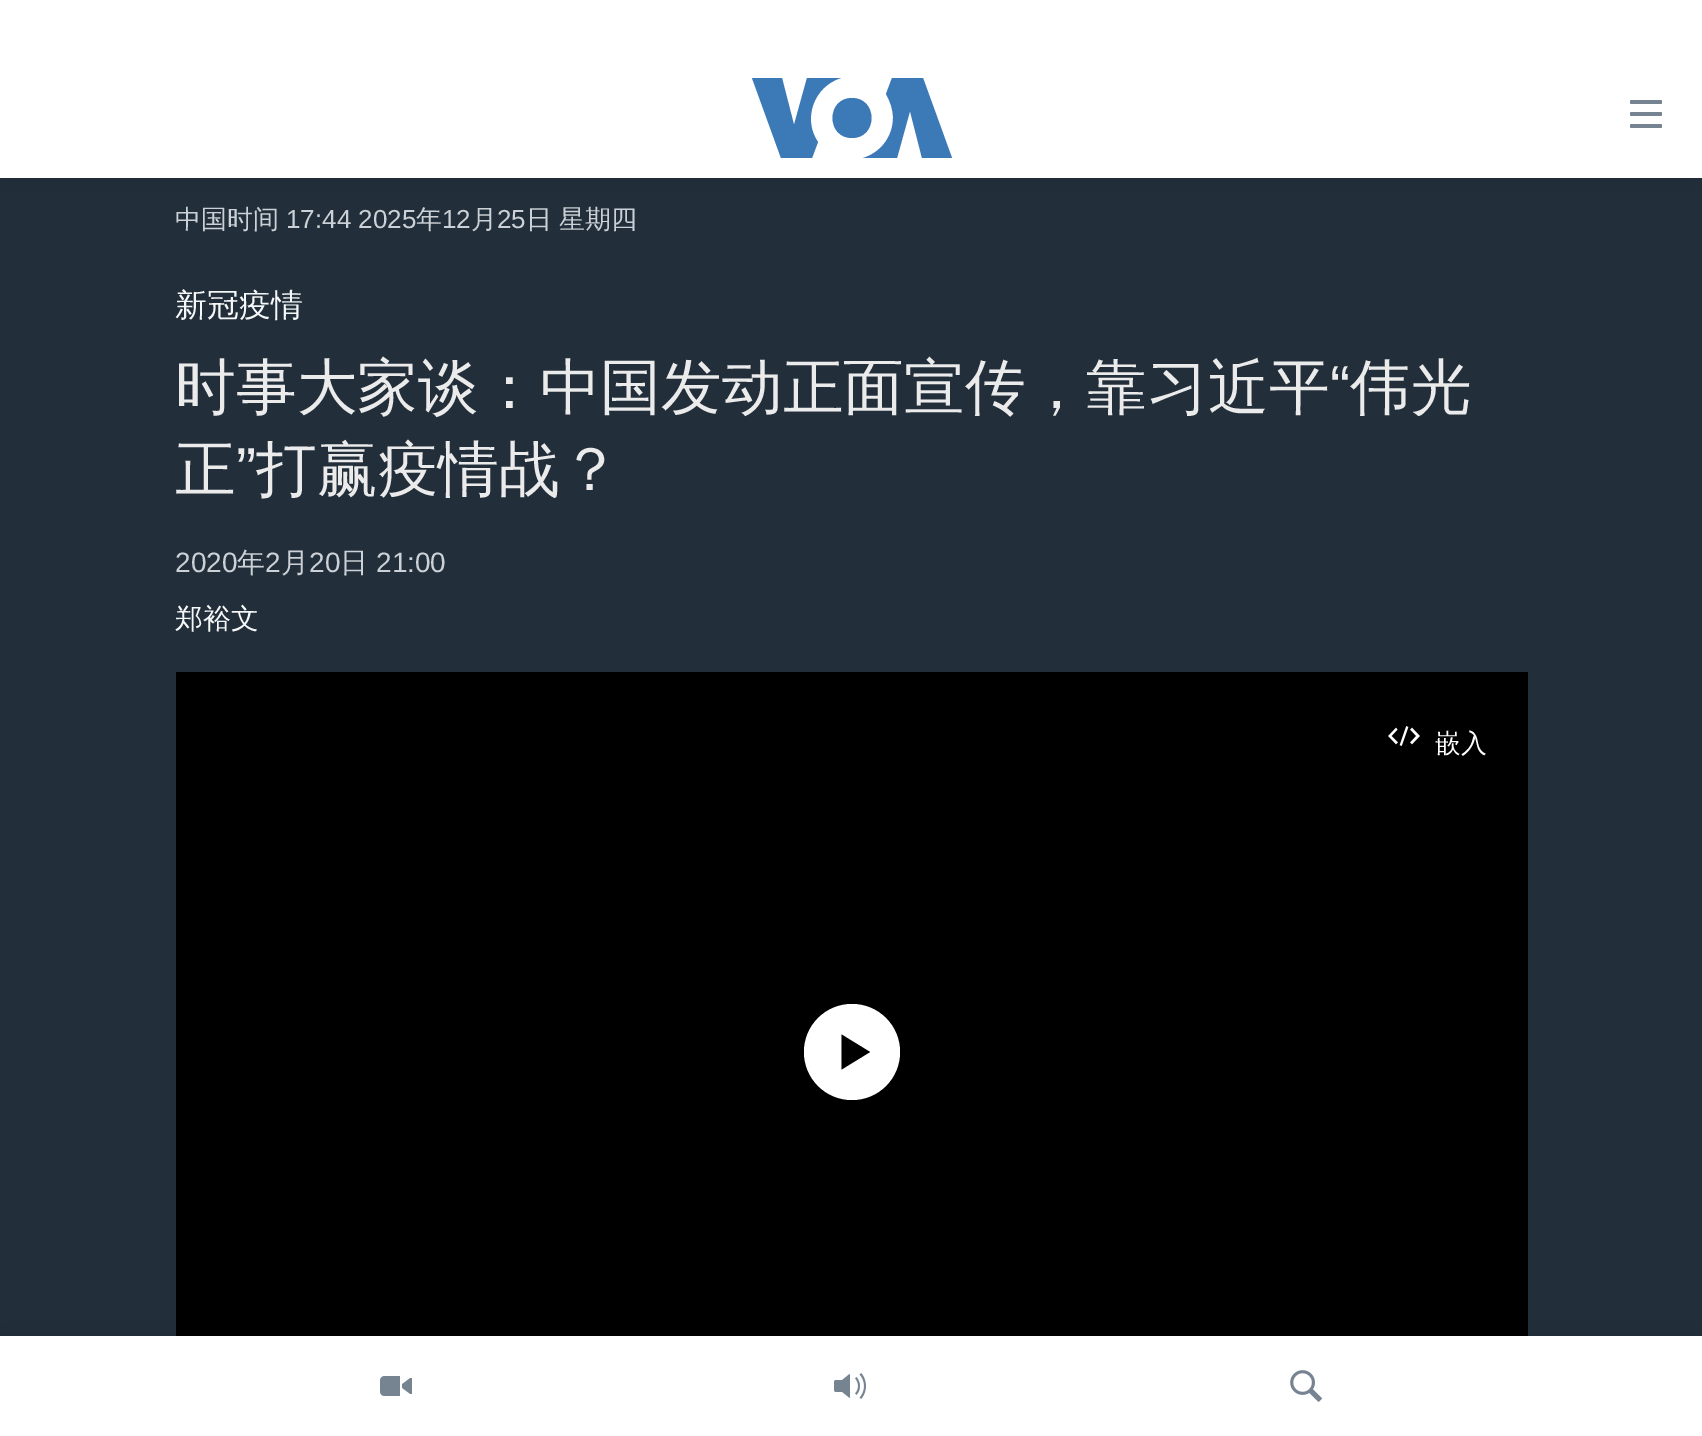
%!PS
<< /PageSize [1702 1436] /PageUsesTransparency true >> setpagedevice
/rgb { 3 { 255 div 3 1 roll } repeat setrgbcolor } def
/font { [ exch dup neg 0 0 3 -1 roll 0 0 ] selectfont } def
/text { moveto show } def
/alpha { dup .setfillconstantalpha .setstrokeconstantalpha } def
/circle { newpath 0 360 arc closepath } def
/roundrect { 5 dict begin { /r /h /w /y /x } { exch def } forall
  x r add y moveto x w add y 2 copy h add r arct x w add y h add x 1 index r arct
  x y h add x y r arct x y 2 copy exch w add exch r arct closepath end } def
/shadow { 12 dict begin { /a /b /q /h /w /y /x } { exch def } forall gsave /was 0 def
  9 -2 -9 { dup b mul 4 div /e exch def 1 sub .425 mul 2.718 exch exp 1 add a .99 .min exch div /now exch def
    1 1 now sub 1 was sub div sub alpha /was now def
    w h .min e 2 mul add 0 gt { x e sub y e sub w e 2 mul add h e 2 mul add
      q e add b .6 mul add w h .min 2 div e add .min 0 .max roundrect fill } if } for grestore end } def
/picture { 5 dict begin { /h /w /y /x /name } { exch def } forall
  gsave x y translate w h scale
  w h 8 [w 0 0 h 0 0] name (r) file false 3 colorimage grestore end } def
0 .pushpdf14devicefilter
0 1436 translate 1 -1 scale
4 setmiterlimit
255 255 255 rgb
0 0 1702 1436 rectfill
34 47 58 rgb
0 178 1702 1158 rectfill
gsave
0 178 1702 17 rectclip
0 0 0 rgb
0 52 1702 126 0 20 0.1 shadow
grestore
255 255 255 rgb
0 26 1702 26 rectfill
59 121 183 rgb
818 142 moveto -6 16 rlineto -31 0 rlineto -29 -80 rlineto 30 0 rlineto 12 47 rlineto 13 -47 rlineto 34 0 rlineto -27 8 -39 41 -23 64 rcurveto closepath 852 98 moveto -26 0 -26 40 0 40 rcurveto 26 0 26 -40 0 -40 rcurveto closepath 893 118 moveto 0 19 -13 35 -30 40 rcurveto 34 0 rlineto 13 -47 rlineto 12 47 rlineto 30 0 rlineto -29 -80 rlineto -31 0 rlineto -6 16 rlineto 4 7 7 15 7 24 rcurveto closepath fill
(img_01.rgb) 1630 100 32 28 picture
0 0 0 rgb
176 672 1352 664 rectfill
0 1336 1702 100 0 20 0.1 shadow
255 255 255 rgb
0 1336 1702 100 rectfill
(img_02.rgb) 380 1376 32 20 picture
(img_03.rgb) 834 1373 32 26 picture
(img_04.rgb) 1290 1370 32 32 picture
(img_05.rgb) 1388 726 32 20 picture
852 1052 48 circle fill
0 0 0 rgb
841.5 1069.5 moveto 28.5 -17.5 rlineto -28.5 -17.5 rlineto closepath fill
/WenQuanYiZenHei-Medium 26 font
203 209 214 rgb
(中国时间) 175 228 text
/LiberationSans-Regular 26 font
(17:44 2025) 286 228 text
/WenQuanYiZenHei-Medium 26 font
(年) 416 228 text
/LiberationSans-Regular 26 font
(12) 442 228 text
/WenQuanYiZenHei-Medium 26 font
(月) 471 228 text
/LiberationSans-Regular 26 font
(25) 497 228 text
/WenQuanYiZenHei-Medium 26 font
(日) 526 228 text
(星期四) 559 228 text
/WenQuanYiZenHei-Medium 32 font
246 247 248 rgb
(新冠疫情) 175 316 text
/WenQuanYiZenHei-Medium 60.75 font
235 235 235 rgb
(时事大家谈：中国发动正面宣传，靠习近平) 175 408 text
/LiberationSans-Regular 60.75 font
(“) 1330 408 text
/WenQuanYiZenHei-Medium 60.75 font
(伟光) 1350 408 text
(正) 175 490 text
/LiberationSans-Regular 60.75 font
(”) 236 490 text
/WenQuanYiZenHei-Medium 60.75 font
(打赢疫情战？) 256 490 text
/LiberationSans-Regular 28 font
203 209 214 rgb
(2020) 175 572 text
/WenQuanYiZenHei-Medium 28 font
(年) 237 572 text
/LiberationSans-Regular 28 font
(2) 265 572 text
/WenQuanYiZenHei-Medium 28 font
(月) 281 572 text
/LiberationSans-Regular 28 font
(20) 309 572 text
/WenQuanYiZenHei-Medium 28 font
(日) 340 572 text
/LiberationSans-Regular 28 font
(21:00) 376 572 text
/WenQuanYiZenHei-Medium 28 font
246 247 248 rgb
(郑裕文) 175 628 text
/WenQuanYiZenHei-Medium 26 font
255 255 255 rgb
(嵌入) 1435 752 text
.poppdf14devicefilter showpage
